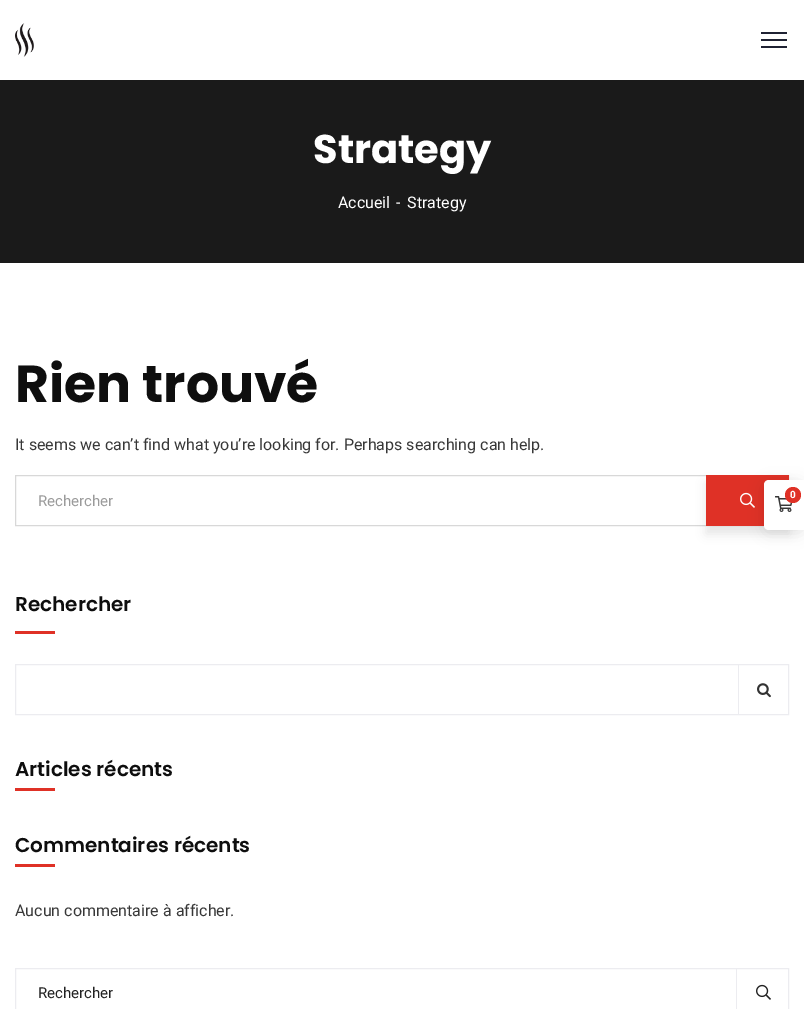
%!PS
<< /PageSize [804 1009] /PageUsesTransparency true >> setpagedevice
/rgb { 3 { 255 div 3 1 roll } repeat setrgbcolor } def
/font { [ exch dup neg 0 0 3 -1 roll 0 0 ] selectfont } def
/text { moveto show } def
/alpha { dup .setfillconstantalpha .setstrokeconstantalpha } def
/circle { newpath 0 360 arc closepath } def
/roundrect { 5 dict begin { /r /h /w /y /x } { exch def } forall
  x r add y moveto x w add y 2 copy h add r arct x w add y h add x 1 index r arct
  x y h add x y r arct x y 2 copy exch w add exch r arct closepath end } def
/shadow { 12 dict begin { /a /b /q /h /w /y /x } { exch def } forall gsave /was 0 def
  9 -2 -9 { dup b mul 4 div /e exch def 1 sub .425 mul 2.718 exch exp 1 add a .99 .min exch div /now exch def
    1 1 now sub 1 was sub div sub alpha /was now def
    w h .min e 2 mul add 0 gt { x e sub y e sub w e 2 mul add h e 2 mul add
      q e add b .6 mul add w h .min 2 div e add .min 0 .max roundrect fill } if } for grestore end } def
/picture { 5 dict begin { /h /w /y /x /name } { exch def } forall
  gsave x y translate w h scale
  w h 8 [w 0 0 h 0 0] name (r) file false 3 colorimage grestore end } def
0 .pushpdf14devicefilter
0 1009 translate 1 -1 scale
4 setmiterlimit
255 255 255 rgb
0 0 804 1009 rectfill
(img_01.rgb) 15 23 19 34 picture
31 34 51 rgb
761 32 26 2 rectfill
761 39 26 2 rectfill
761 46 26 2 rectfill
26 26 26 rgb
0 80 804 183 rectfill
216 216 216 rgb
15.5 475.5 773 50 rectstroke
12 12 12 rgb
706 483 83 51 0 5 0.1 shadow
223 49 38 rgb
706 475 83 51 rectfill
(img_02.rgb) 740 492 15 16 picture
15 631 40 3 rectfill
236 236 240 rgb
15.5 664.5 773 50 rectstroke
738 664 1 51 rectfill
(img_03.rgb) 757 683 14 15 picture
223 49 38 rgb
15 788 40 3 rectfill
15 864 40 3 rectfill
236 236 240 rgb
15.5 968.5 773 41 rectstroke
736 968 1 41 rectfill
(img_04.rgb) 756 984 15 16 picture
0 0 0 rgb
764 483 40 50 5 7.5 0.1 shadow
255 255 255 rgb
769 480 moveto 35 0 rlineto 0 50 rlineto -35 0 rlineto -3 0 -5 -2 -5 -5 rcurveto 0 -40 rlineto 0 -3 2 -5 5 -5 rcurveto closepath fill
(img_05.rgb) 775 496 18 16 picture
223 49 38 rgb
793 495 8 circle fill
/Poppins-Bold 40 font
255 255 255 rgb
(Strategy) 313 163 text
/Roboto-Regular 16 font
(Accueil) 338 208 text
(-) 396 208 text
(Strategy) 407 208 text
/Poppins-Bold 52 font
14 14 14 rgb
(Rien trouvé) 15 402 text
/Roboto-Regular 16 font
56 56 56 rgb
(It seems we can’t find what you’re looking for. Perhaps searching can help.) 15 450 text
/Roboto-Regular 15 font
155 155 155 rgb
(Rechercher) 38 506 text
/Poppins-SemiBold 20 font
14 14 14 rgb
(Rechercher) 15 611 text
(Articles récents) 15 776 text
(Commentaires récents) 15 852 text
/Roboto-Regular 16 font
56 56 56 rgb
(Aucun commentaire à afficher.) 15 916 text
/Roboto-Regular 15 font
34 34 34 rgb
(Rechercher) 38 998 text
/Roboto-Bold 10 font
255 255 255 rgb
(0) 790 498 text
.poppdf14devicefilter showpage
